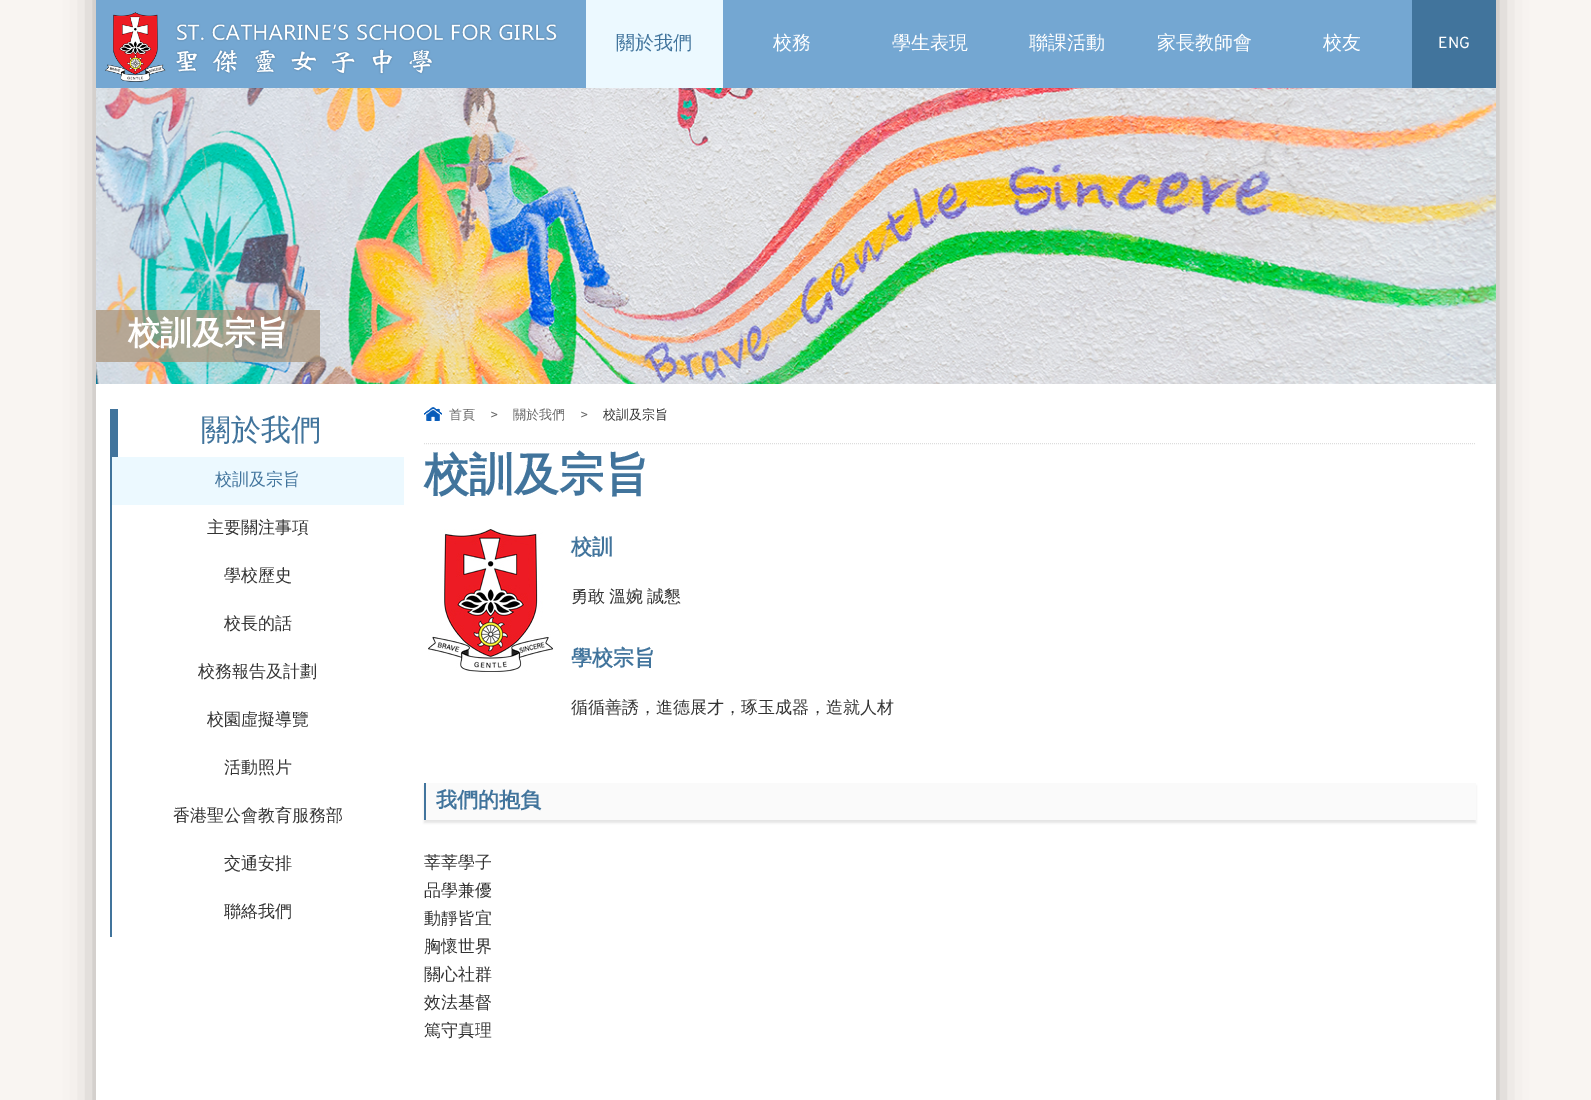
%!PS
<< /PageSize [1591 1100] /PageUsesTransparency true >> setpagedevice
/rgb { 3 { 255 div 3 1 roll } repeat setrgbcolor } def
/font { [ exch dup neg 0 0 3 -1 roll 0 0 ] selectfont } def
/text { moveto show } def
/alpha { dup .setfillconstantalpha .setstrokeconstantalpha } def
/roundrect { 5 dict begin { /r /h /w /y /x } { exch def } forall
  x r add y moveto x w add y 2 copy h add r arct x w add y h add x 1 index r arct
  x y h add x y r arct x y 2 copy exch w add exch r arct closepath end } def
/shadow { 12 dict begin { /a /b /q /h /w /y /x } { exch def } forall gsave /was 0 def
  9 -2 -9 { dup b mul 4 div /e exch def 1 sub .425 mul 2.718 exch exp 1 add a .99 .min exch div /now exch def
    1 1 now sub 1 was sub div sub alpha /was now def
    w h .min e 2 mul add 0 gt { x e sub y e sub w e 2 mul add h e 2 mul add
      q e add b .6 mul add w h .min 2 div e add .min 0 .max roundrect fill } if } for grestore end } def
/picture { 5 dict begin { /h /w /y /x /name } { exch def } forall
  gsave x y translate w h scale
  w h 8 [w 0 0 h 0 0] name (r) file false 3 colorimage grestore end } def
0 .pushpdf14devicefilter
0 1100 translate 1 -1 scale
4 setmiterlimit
249 245 242 rgb
0 0 1591 1100 rectfill
0 0 0 rgb
96 -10 1400 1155 0 15 0.3 shadow
255 255 255 rgb
96 384 1400 716 rectfill
116 167 210 rgb
96 0 1316 88 rectfill
236 249 255 rgb
586 0 137 88 rectfill
(img_01.rgb) 105 12 453 70 picture
65 116 156 rgb
1412 0 84 88 rectfill
(img_02.rgb) 96 88 1400 296 picture
0.7 alpha
168 144 116 rgb
96 310 224 52 rectfill
1 alpha
65 116 156 rgb
110 409 8 48 rectfill
110 457 2 480 rectfill
236 249 255 rgb
112 457 292 48 rectfill
221 221 221 rgb
[1 1] 0 setdash
424 443.5 moveto 1052 0 rlineto stroke
(img_03.rgb) 424 407 18 14 picture
(img_04.rgb) 428 529 125 143 picture
0 0 0 rgb
424 786 1052 37 0 1 0.1 shadow
250 250 250 rgb
426 783 1050 37 rectfill
66 117 158 rgb
424 783 2 37 rectfill
/WenQuanYiZenHei-Medium 19 font
65 116 156 rgb
(關於我們) 616 49 text
255 255 255 rgb
(校務) 773 49 text
(學生表現) 892 49 text
(聯課活動) 1029 49 text
(家長教師會) 1157 49 text
(校友) 1323 49 text
/Overpass-Regular 16 font
(ENG) 1438 48 text
/WenQuanYiZenHei-Bold 32 font
(校訓及宗旨) 128 344 text
/WenQuanYiZenHei-Medium 30 font
65 116 156 rgb
(關於我們) 201 440 text
/WenQuanYiZenHei-Medium 17 font
(校訓及宗旨) 215 485 text
51 51 51 rgb
(主要關注事項) 207 533 text
(學校歷史) 224 581 text
(校長的話) 224 629 text
(校務報告及計劃) 198 677 text
(校園虛擬導覽) 207 725 text
(活動照片) 224 773 text
(香港聖公會教育服務部) 173 821 text
(交通安排) 224 869 text
(聯絡我們) 224 917 text
/WenQuanYiZenHei-Medium 13 font
102 102 102 rgb
(首頁) 449 419 text
/Overpass-Regular 13 font
(>) 490 419 text
/WenQuanYiZenHei-Medium 13 font
(關於我們) 513 419 text
/Overpass-Regular 13 font
(>) 580 419 text
/WenQuanYiZenHei-Medium 13 font
51 51 51 rgb
(校訓及宗旨) 603 419 text
/WenQuanYiZenHei-Bold 45 font
65 116 156 rgb
(校訓及宗旨) 424 490 text
/WenQuanYiZenHei-Bold 21 font
(校訓) 571 554 text
/WenQuanYiZenHei-Medium 17 font
51 51 51 rgb
571 602 moveto -1 0 32 (勇敢 溫婉 誠懇) widthshow
/WenQuanYiZenHei-Bold 21 font
65 116 156 rgb
(學校宗旨) 571 665 text
/WenQuanYiZenHei-Medium 17 font
51 51 51 rgb
(循循善誘，進德展才，琢玉成器，造就人材) 571 713 text
/WenQuanYiZenHei-Bold 21 font
65 116 156 rgb
(我們的抱負) 436 807 text
/WenQuanYiZenHei-Medium 17 font
51 51 51 rgb
(莘莘學子) 424 868 text
(品學兼優) 424 896 text
(動靜皆宜) 424 924 text
(胸懷世界) 424 952 text
(關心社群) 424 980 text
(效法基督) 424 1008 text
(篤守真理) 424 1036 text
.poppdf14devicefilter showpage
